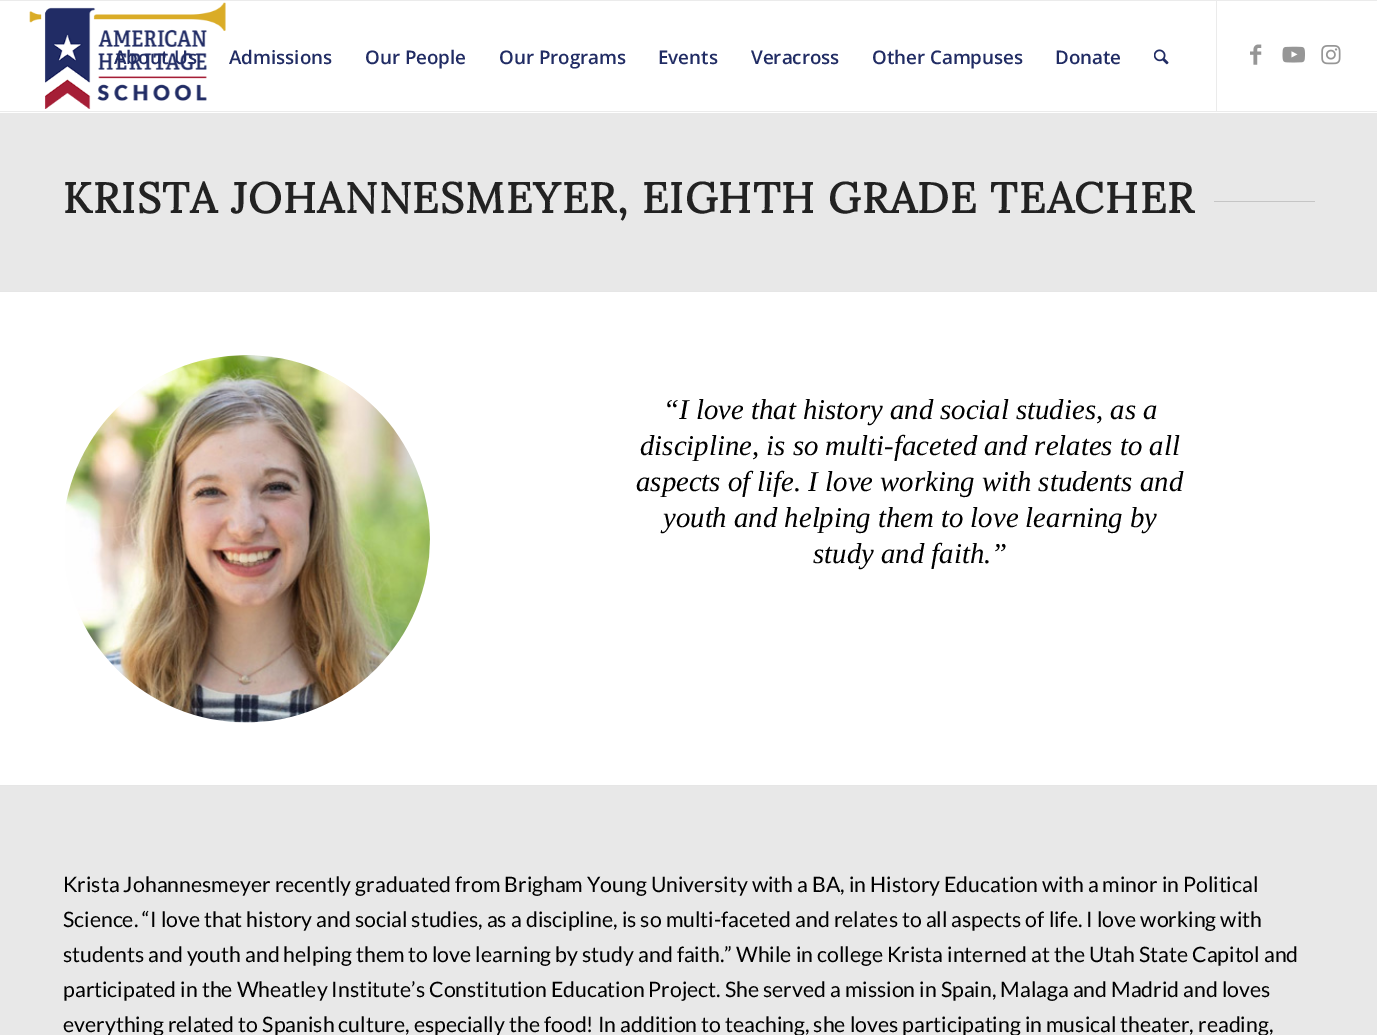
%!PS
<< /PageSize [1377 1035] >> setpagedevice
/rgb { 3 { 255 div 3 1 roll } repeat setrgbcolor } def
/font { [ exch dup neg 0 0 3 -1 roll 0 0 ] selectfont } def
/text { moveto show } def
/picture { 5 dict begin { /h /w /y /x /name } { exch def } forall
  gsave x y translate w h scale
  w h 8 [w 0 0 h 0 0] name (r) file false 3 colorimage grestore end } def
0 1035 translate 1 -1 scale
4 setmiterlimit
255 255 255 rgb
0 0 1377 1035 rectfill
235 235 235 rgb
0 0 1377 1 rectfill
0 111 1377 1 rectfill
(img_01.rgb) 29 2 197 107 picture
1216 1 1 110 rectfill
(img_02.rgb) 1154 49 15 16 picture
(img_03.rgb) 1250 44 12 21 picture
(img_04.rgb) 1282 46 23 17 picture
(img_05.rgb) 1321 45 20 20 picture
232 232 232 rgb
0 113 1377 178 rectfill
197 197 197 rgb
1214 201 101 1 rectfill
230 230 230 rgb
0 291 1377 1 rectfill
(img_06.rgb) 65 355 365 368 picture
232 232 232 rgb
0 786 1377 249 rectfill
230 230 230 rgb
0 785 1377 1 rectfill
/OpenSans-SemiBold 18.75 font
33 44 100 rgb
(About Us) 114 64 text
(Admissions) 229 64 text
(Our People) 365 64 text
(Our Programs) 499 64 text
(Events) 658 64 text
(Veracross) 751 64 text
(Other Campuses) 872 64 text
(Donate) 1055 64 text
/Lora-Bold 42.5 font
34 34 34 rgb
63 213 moveto 1.25 0 (KRISTA JOHANNESMEYER, EIGHTH GRADE TEACHER) ashow
/LiberationSerif-Italic 28.75 font
0 0 0 rgb
(“I love that history and social studies, as a) 663 419 text
(discipline, is so multi-faceted and relates to all) 640 455 text
(aspects of life. I love working with students and) 636 491 text
(youth and helping them to love learning by) 663 527 text
(study and faith.”) 813 563 text
/Lato-Regular 21.25 font
(Krista Johannesmeyer recently graduated from Brigham Young University with a BA, in History Education with a minor in Political) 63 892 text
(Science. “I love that history and social studies, as a discipline, is so multi-faceted and relates to all aspects of life. I love working with) 63 927 text
(students and youth and helping them to love learning by study and faith.” While in college Krista interned at the Utah State Capitol and) 63 962 text
(participated in the Wheatley Institute’s Constitution Education Project. She served a mission in Spain, Malaga and Madrid and loves) 63 997 text
(everything related to Spanish culture, especially the food! In addition to teaching, she loves participating in musical theater, reading,) 63 1032 text
showpage
